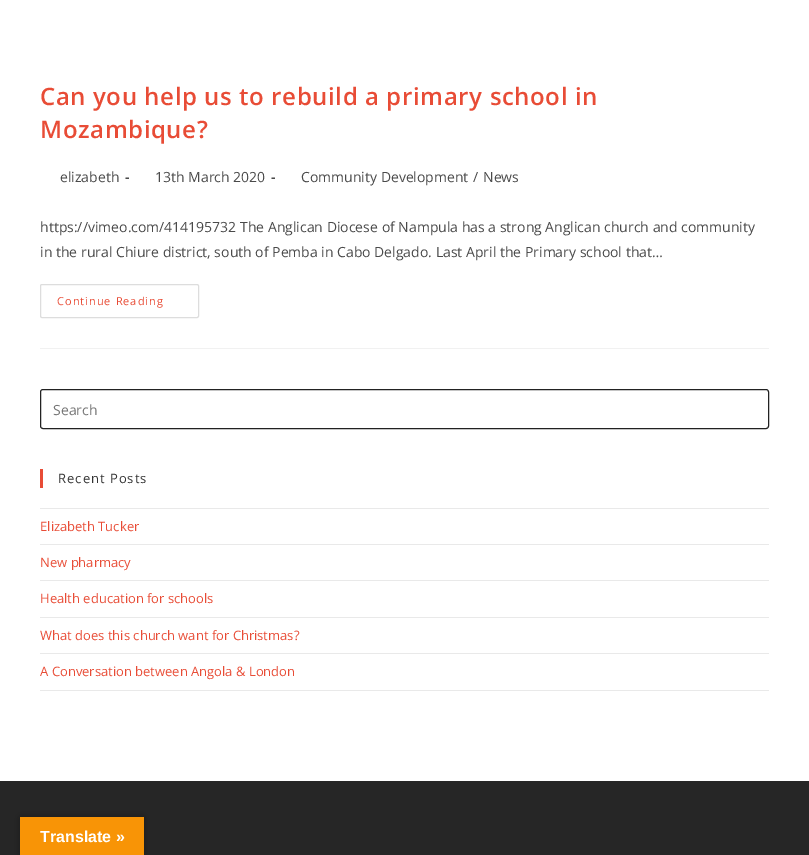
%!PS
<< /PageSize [809 855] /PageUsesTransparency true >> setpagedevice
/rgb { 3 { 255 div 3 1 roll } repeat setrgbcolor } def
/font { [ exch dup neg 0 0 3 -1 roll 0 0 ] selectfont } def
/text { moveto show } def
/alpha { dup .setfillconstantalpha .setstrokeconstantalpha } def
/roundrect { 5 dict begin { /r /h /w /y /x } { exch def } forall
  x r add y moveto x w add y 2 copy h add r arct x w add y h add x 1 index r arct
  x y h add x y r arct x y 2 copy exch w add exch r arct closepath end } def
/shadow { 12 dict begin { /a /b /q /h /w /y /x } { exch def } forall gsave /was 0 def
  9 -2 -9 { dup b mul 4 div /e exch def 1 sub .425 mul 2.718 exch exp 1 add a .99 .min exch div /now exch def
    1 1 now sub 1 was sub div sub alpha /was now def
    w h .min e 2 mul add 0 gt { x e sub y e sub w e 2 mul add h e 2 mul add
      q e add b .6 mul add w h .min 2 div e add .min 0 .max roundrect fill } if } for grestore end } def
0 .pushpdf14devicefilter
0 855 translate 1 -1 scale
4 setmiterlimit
255 255 255 rgb
0 0 809 855 rectfill
241 241 241 rgb
40 348 729 1 rectfill
221 221 221 rgb
40.5 284.5 158 33 1.5 roundrect stroke
34 34 34 rgb
40.5 389.5 728 39 2.5 roundrect stroke
232 76 54 rgb
40 469 3 19 rectfill
233 233 233 rgb
40 508 729 1 rectfill
40 544 729 1 rectfill
40 580 729 1 rectfill
40 617 729 1 rectfill
40 653 729 1 rectfill
40 690 729 1 rectfill
38 38 38 rgb
0 781 809 74 rectfill
0 0 0 rgb
20 817 124 38 0 4.5 0.3 shadow
248 148 6 rgb
20 817 124 38 rectfill
/OpenSans-SemiBold 24 font
232 76 54 rgb
40 105 moveto 0.6 0 (Can you help us to rebuild a primary school in) ashow
40 138 moveto 0.6 0 (Mozambique?) ashow
/OpenSans-Regular 14 font
74 74 74 rgb
(elizabeth) 60 182 text
/OpenSans-Bold 14 font
(-) 125 182 text
/OpenSans-Regular 14 font
(13th March 2020) 155 182 text
/OpenSans-Bold 14 font
(-) 271 182 text
/OpenSans-Regular 14 font
(Community Development) 301 182 text
(/) 473 182 text
(News) 483 182 text
(https://vimeo.com/414195732 The Anglican Diocese of Nampula has a strong Anglican church and community) 40 232 text
(in the rural Chiure district, south of Pemba in Cabo Delgado. Last April the Primary school that…) 40 257 text
/OpenSans-Regular 11 font
232 76 54 rgb
57 305 moveto 1 0 (Continue Reading) ashow
/OpenSans-Regular 14 font
117 117 117 rgb
(Search) 53 415 text
/OpenSans-Regular 13 font
51 51 51 rgb
58 483 moveto 1 0 (Recent Posts) ashow
232 76 54 rgb
(Elizabeth Tucker) 40 531 text
(New pharmacy) 40 567 text
(Health education for schools) 40 603 text
(What does this church want for Christmas?) 40 640 text
(A Conversation between Angola & London) 40 676 text
/LiberationSans-Bold 16 font
255 255 255 rgb
(Translate ») 40 842 text
.poppdf14devicefilter showpage
